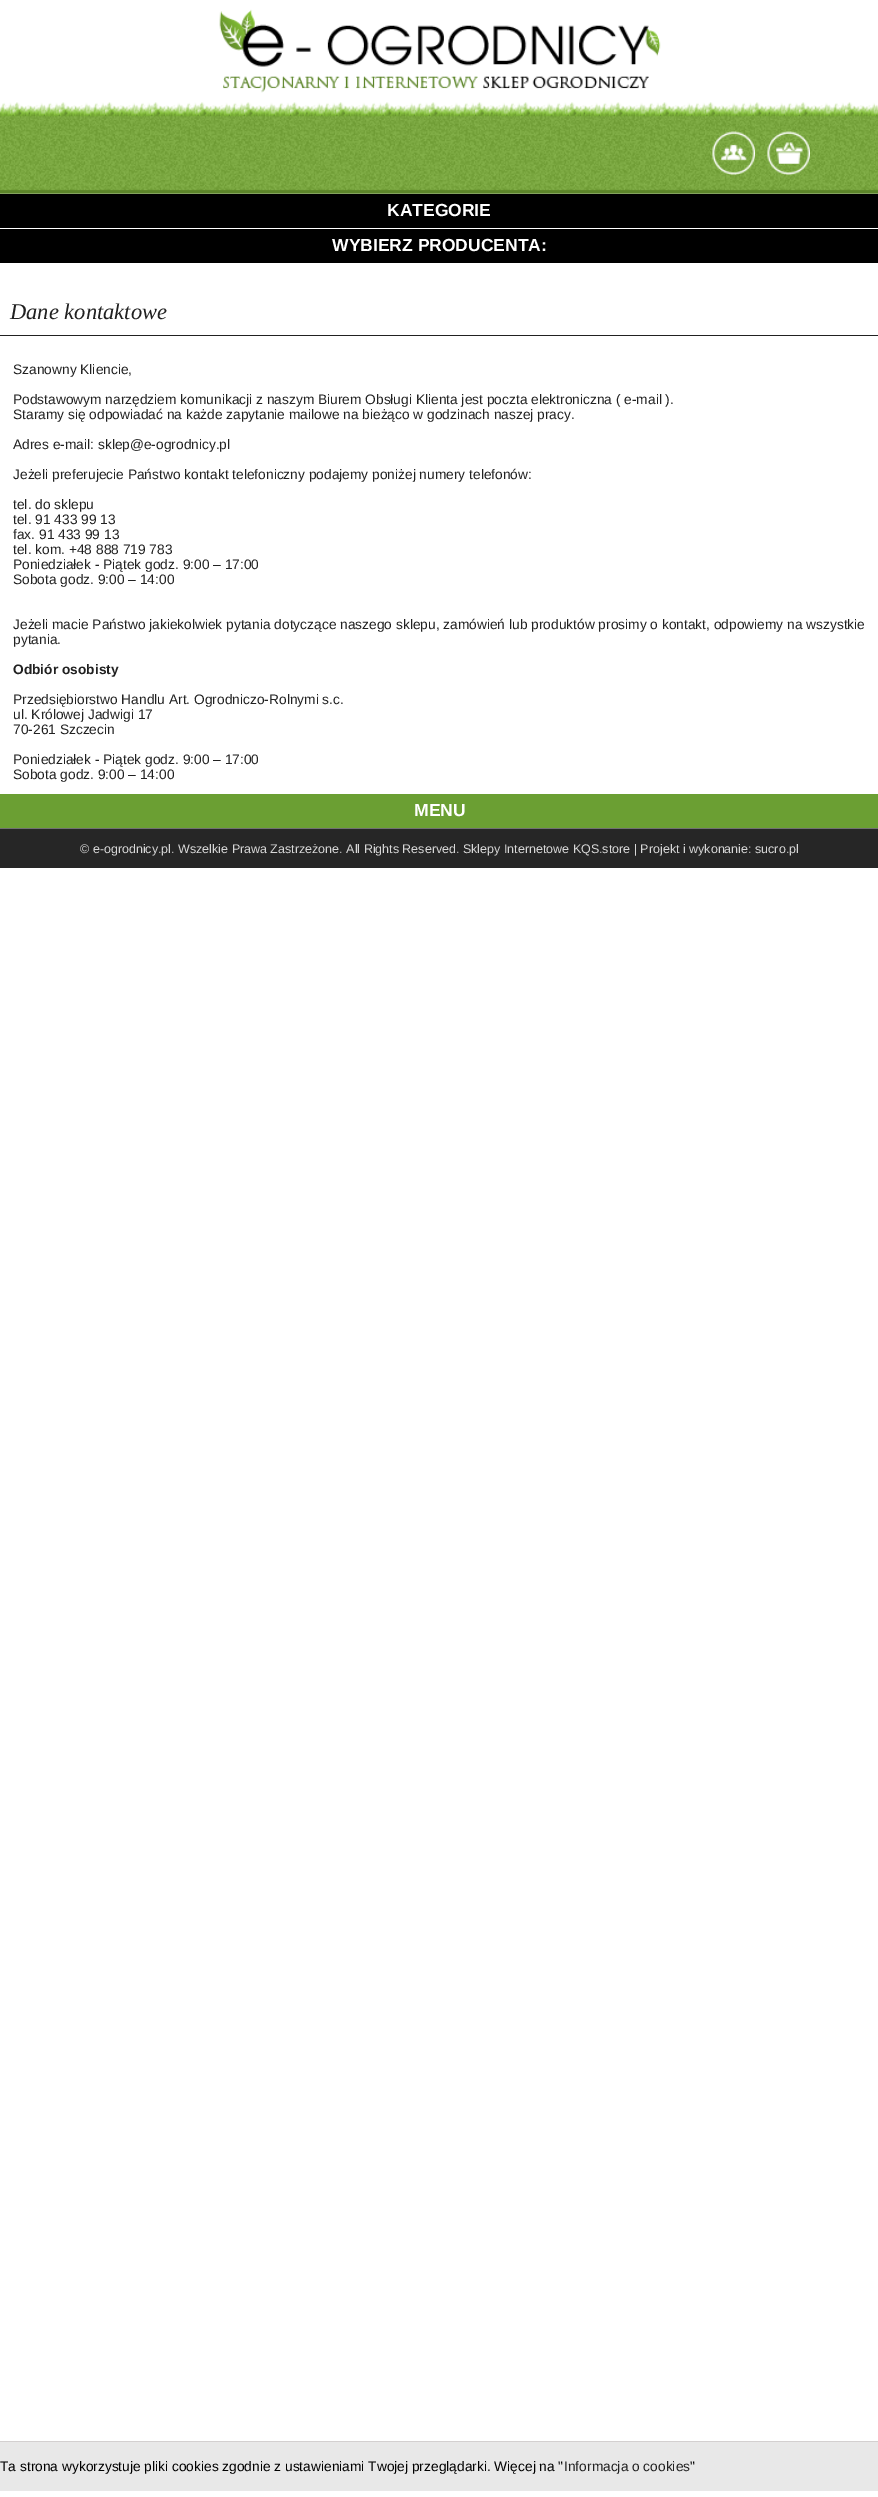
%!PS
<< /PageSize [878 2497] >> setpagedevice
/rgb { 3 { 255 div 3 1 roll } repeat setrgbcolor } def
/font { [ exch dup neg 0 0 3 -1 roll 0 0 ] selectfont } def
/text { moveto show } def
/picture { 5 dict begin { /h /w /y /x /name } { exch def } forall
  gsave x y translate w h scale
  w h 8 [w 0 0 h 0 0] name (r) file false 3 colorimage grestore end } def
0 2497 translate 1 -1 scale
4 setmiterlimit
255 255 255 rgb
0 0 878 2497 rectfill
(img_01.rgb) 0 102 878 92 picture
(img_02.rgb) 219 9 442 84 picture
(img_03.rgb) 712 131 43 44 picture
(img_04.rgb) 767 131 43 44 picture
0 0 0 rgb
0 194 878 34 rectfill
0 229 878 34 rectfill
33 33 33 rgb
0 335 878 1 rectfill
38 38 38 rgb
0 829 878 39 rectfill
113 113 113 rgb
0 828 878 1 rectfill
107 159 51 rgb
0 794 878 34 rectfill
232 232 232 rgb
0 2442 878 49 rectfill
211 208 208 rgb
0 2441 878 1 rectfill
/LiberationSans-Bold 17.5 font
255 255 255 rgb
(KATEGORIE) 387 216 text
(WYBIERZ PRODUCENTA:) 332 251 text
/LiberationSerif-Italic 22.5 font
33 33 33 rgb
(Dane kontaktowe) 10 319 text
/LiberationSans-Regular 13.75 font
(Szanowny Kliencie,) 13 374 text
(Podstawowym narzędziem komunikacji z naszym Biurem Obsługi Klienta jest poczta elektroniczna \( e-mail \).) 13 404 text
(Staramy się odpowiadać na każde zapytanie mailowe na bieżąco w godzinach naszej pracy.) 13 419 text
(Adres e-mail: sklep@e-ogrodnicy.pl) 13 449 text
(Jeżeli preferujecie Państwo kontakt telefoniczny podajemy poniżej numery telefonów:) 13 479 text
(tel. do sklepu) 13 509 text
(tel. 91 433 99 13) 13 524 text
(fax. 91 433 99 13) 13 539 text
(tel. kom. +48 888 719 783) 13 554 text
(Poniedziałek - Piątek godz. 9:00 – 17:00) 13 569 text
(Sobota godz. 9:00 – 14:00) 13 584 text
(Jeżeli macie Państwo jakiekolwiek pytania dotyczące naszego sklepu, zamówień lub produktów prosimy o kontakt, odpowiemy na wszystkie) 13 629 text
(pytania.) 13 644 text
/LiberationSans-Bold 13.75 font
(Odbiór osobisty) 13 674 text
/LiberationSans-Regular 13.75 font
(Przedsiębiorstwo Handlu Art. Ogrodniczo-Rolnymi s.c.) 13 704 text
(ul. Królowej Jadwigi 17) 13 719 text
(70-261 Szczecin) 13 734 text
(Poniedziałek - Piątek godz. 9:00 – 17:00) 13 764 text
(Sobota godz. 9:00 – 14:00) 13 779 text
/LiberationSans-Bold 17.5 font
255 255 255 rgb
(MENU) 414 816 text
/LiberationSans-Regular 12.5 font
216 216 216 rgb
(© e-ogrodnicy.pl. Wszelkie Prawa Zastrzeżone. All Rights Reserved. Sklepy Internetowe KQS.store | Projekt i wykonanie: sucro.pl) 80 853 text
/LiberationSans-Regular 13.75 font
0 0 0 rgb
(Ta strona wykorzystuje pliki cookies zgodnie z ustawieniami Twojej przeglądarki. Więcej na ") 0 2471 text
33 33 33 rgb
(Informacja o cookies) 564 2471 text
0 0 0 rgb
(") 690 2471 text
showpage
